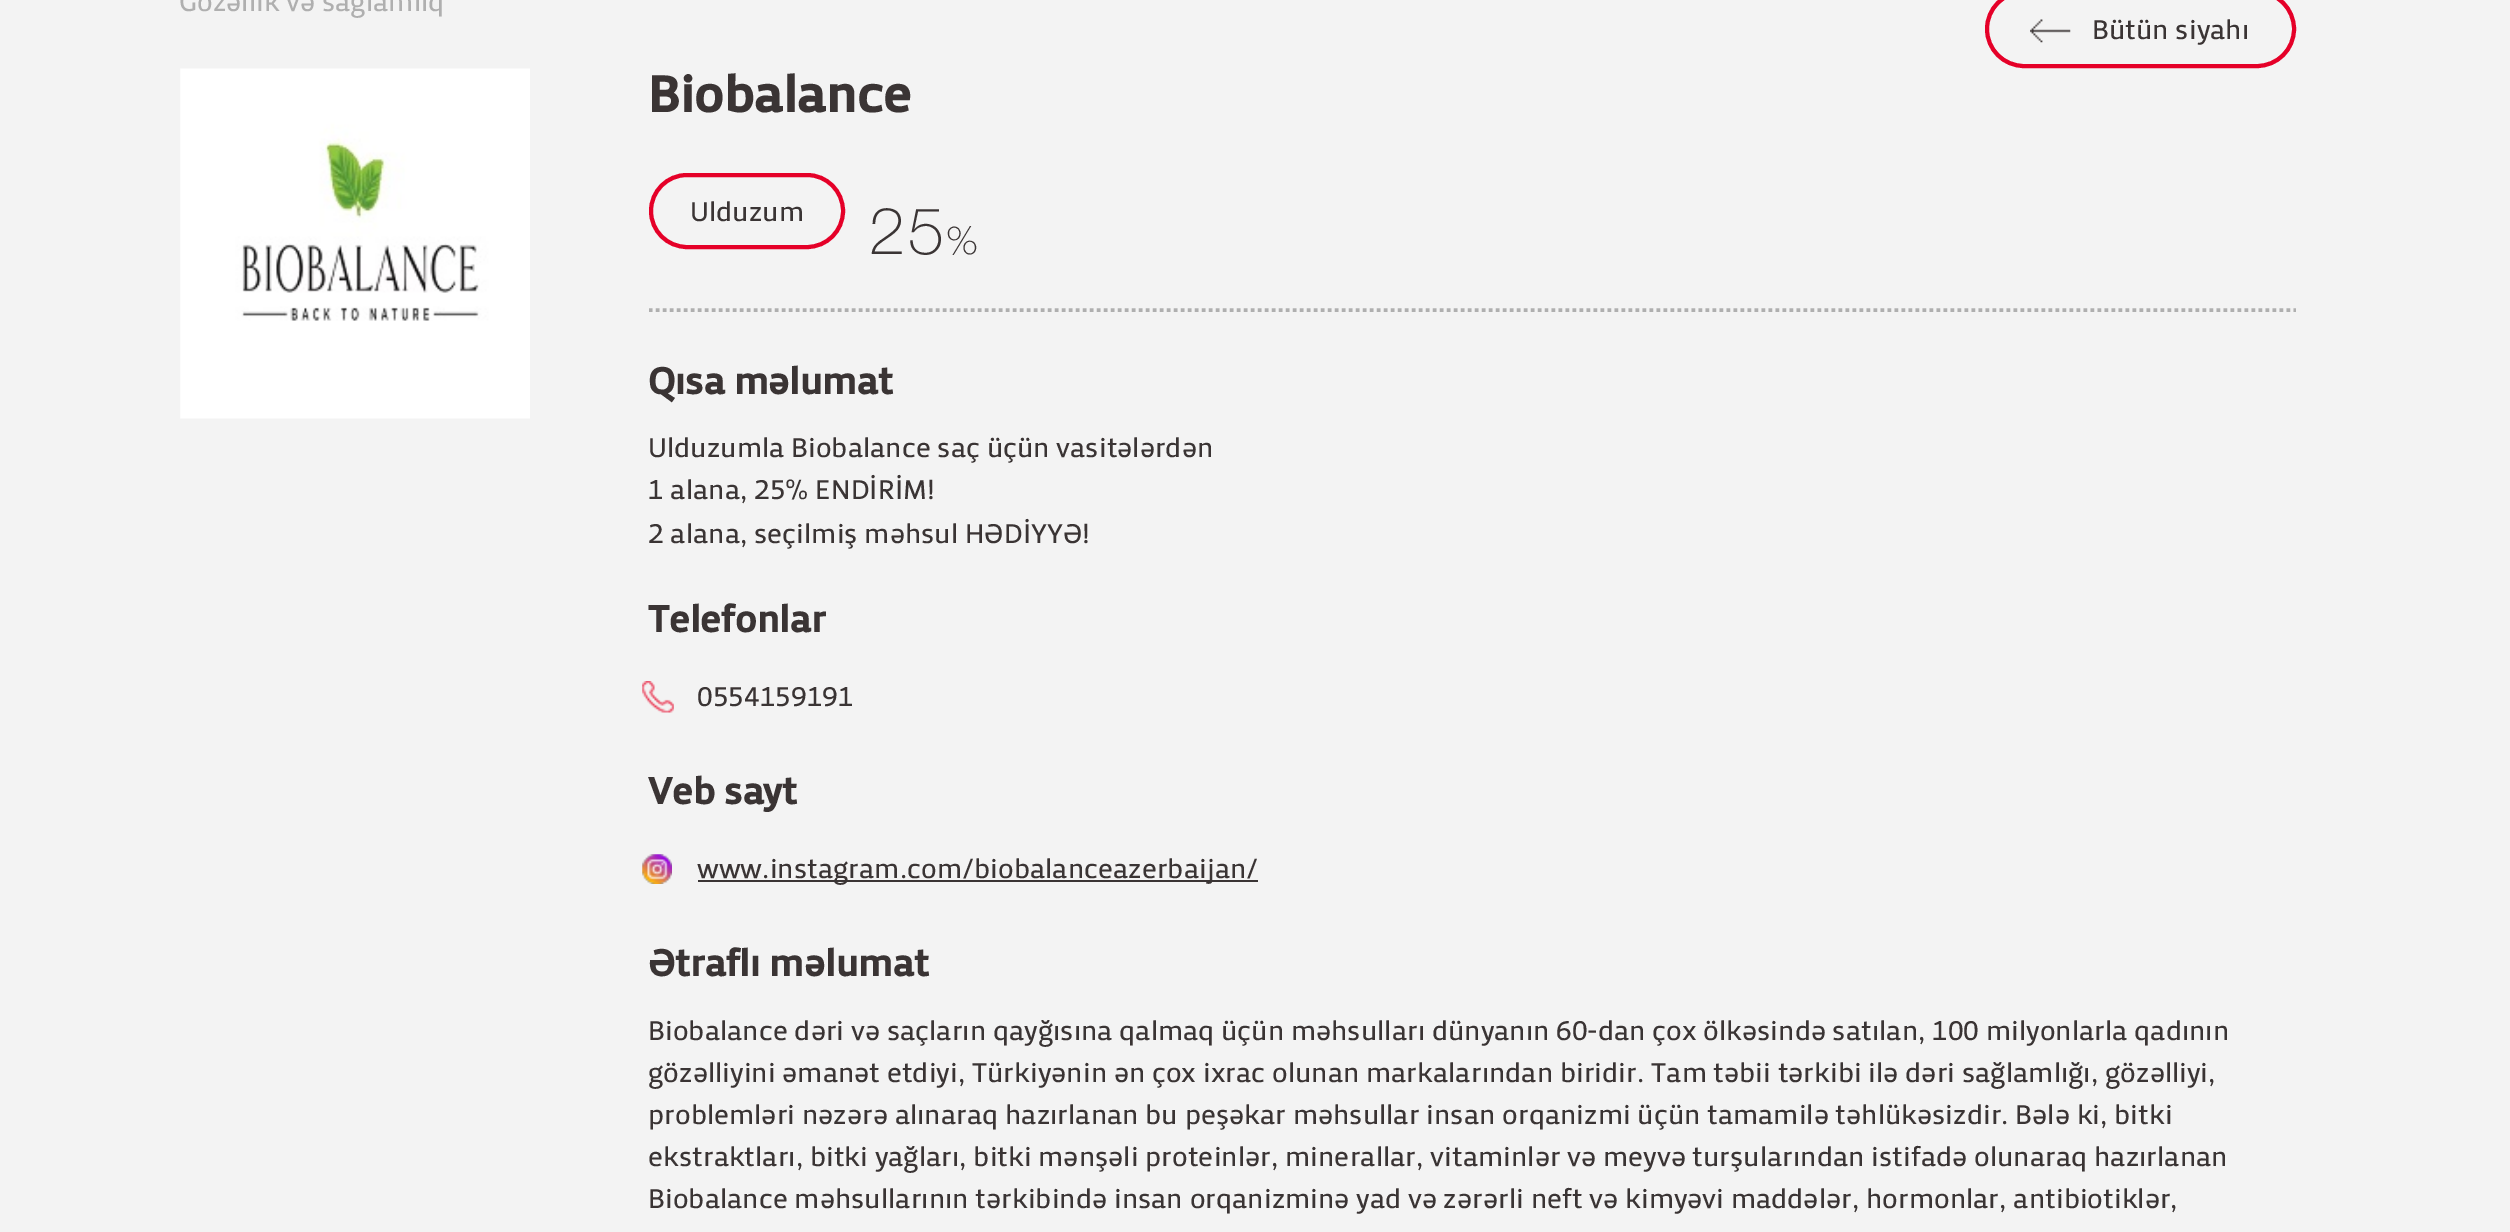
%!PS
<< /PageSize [2510 1232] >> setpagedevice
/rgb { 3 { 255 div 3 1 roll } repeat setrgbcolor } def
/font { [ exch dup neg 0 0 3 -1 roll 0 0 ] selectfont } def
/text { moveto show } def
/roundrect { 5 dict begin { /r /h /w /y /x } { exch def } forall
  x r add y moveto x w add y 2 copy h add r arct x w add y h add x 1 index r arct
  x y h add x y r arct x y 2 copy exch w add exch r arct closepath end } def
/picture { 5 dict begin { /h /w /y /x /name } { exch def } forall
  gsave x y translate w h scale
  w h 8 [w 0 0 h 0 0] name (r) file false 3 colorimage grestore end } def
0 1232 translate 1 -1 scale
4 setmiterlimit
243 243 243 rgb
0 0 2510 1232 rectfill
229 0 40 rgb
4 setlinewidth
1987 -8 307 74 37 roundrect stroke
(img_01.rgb) 2030 19 41 24 picture
175 175 175 rgb
3.5 setlinewidth
[3.5 3.5] 0 setdash
649 310 moveto 1647 0 rlineto stroke
(img_02.rgb) 180 68 350 351 picture
229 0 40 rgb
4 setlinewidth
[] 0 setdash
651 175 192 72 36 roundrect stroke
(img_03.rgb) 642 681 32 32 picture
(img_04.rgb) 642 854 30 30 picture
58 52 52 rgb
698 880 560 2 rectfill
/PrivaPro-Regular 28 font
175 175 175 rgb
(Gözəllik və sağlamlıq) 179 11 text
58 52 52 rgb
(Bütün siyahı) 2092 39 text
/PrivaPro-Bold 52.5 font
(Biobalance) 648 112 text
/PrivaPro-Regular 28 font
(Ulduzum) 690 221 text
/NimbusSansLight-Light 70 font
(25) 867 254 text
/NimbusSansLight-Light 42 font
(%) 946 254 text
/PrivaPro-Bold 38.5 font
(Qısa məlumat) 648 394 text
/PrivaPro-Regular 28 font
(Ulduzumla Biobalance saç üçün vasitələrdən) 648 457 text
(1 alana, 25% ENDİRİM!) 648 499 text
(2 alana, seçilmiş məhsul HƏDİYYƏ!) 648 543 text
/PrivaPro-Bold 38.5 font
(Telefonlar) 648 632 text
/PrivaPro-Regular 28 font
(0554159191) 697 706 text
/PrivaPro-Bold 38.5 font
(Veb sayt) 648 804 text
/PrivaPro-Regular 28 font
(www.instagram.com/biobalanceazerbaijan/) 697 878 text
/PrivaPro-Bold 38.5 font
(Ətraflı məlumat) 648 976 text
/PrivaPro-Regular 28 font
(Biobalance dəri və saçların qayğısına qalmaq üçün məhsulları dünyanın 60-dan çox ölkəsində satılan, 100 milyonlarla qadının) 648 1040 text
(gözəlliyini əmanət etdiyi, Türkiyənin ən çox ixrac olunan markalarından biridir. Tam təbii tərkibi ilə dəri sağlamlığı, gözəlliyi,) 648 1082 text
(problemləri nəzərə alınaraq hazırlanan bu peşəkar məhsullar insan orqanizmi üçün tamamilə təhlükəsizdir. Bələ ki, bitki) 648 1124 text
(ekstraktları, bitki yağları, bitki mənşəli proteinlər, minerallar, vitaminlər və meyvə turşularından istifadə olunaraq hazırlanan) 648 1166 text
(Biobalance məhsullarının tərkibində insan orqanizminə yad və zərərli neft və kimyəvi maddələr, hormonlar, antibiotiklər,) 648 1208 text
showpage
